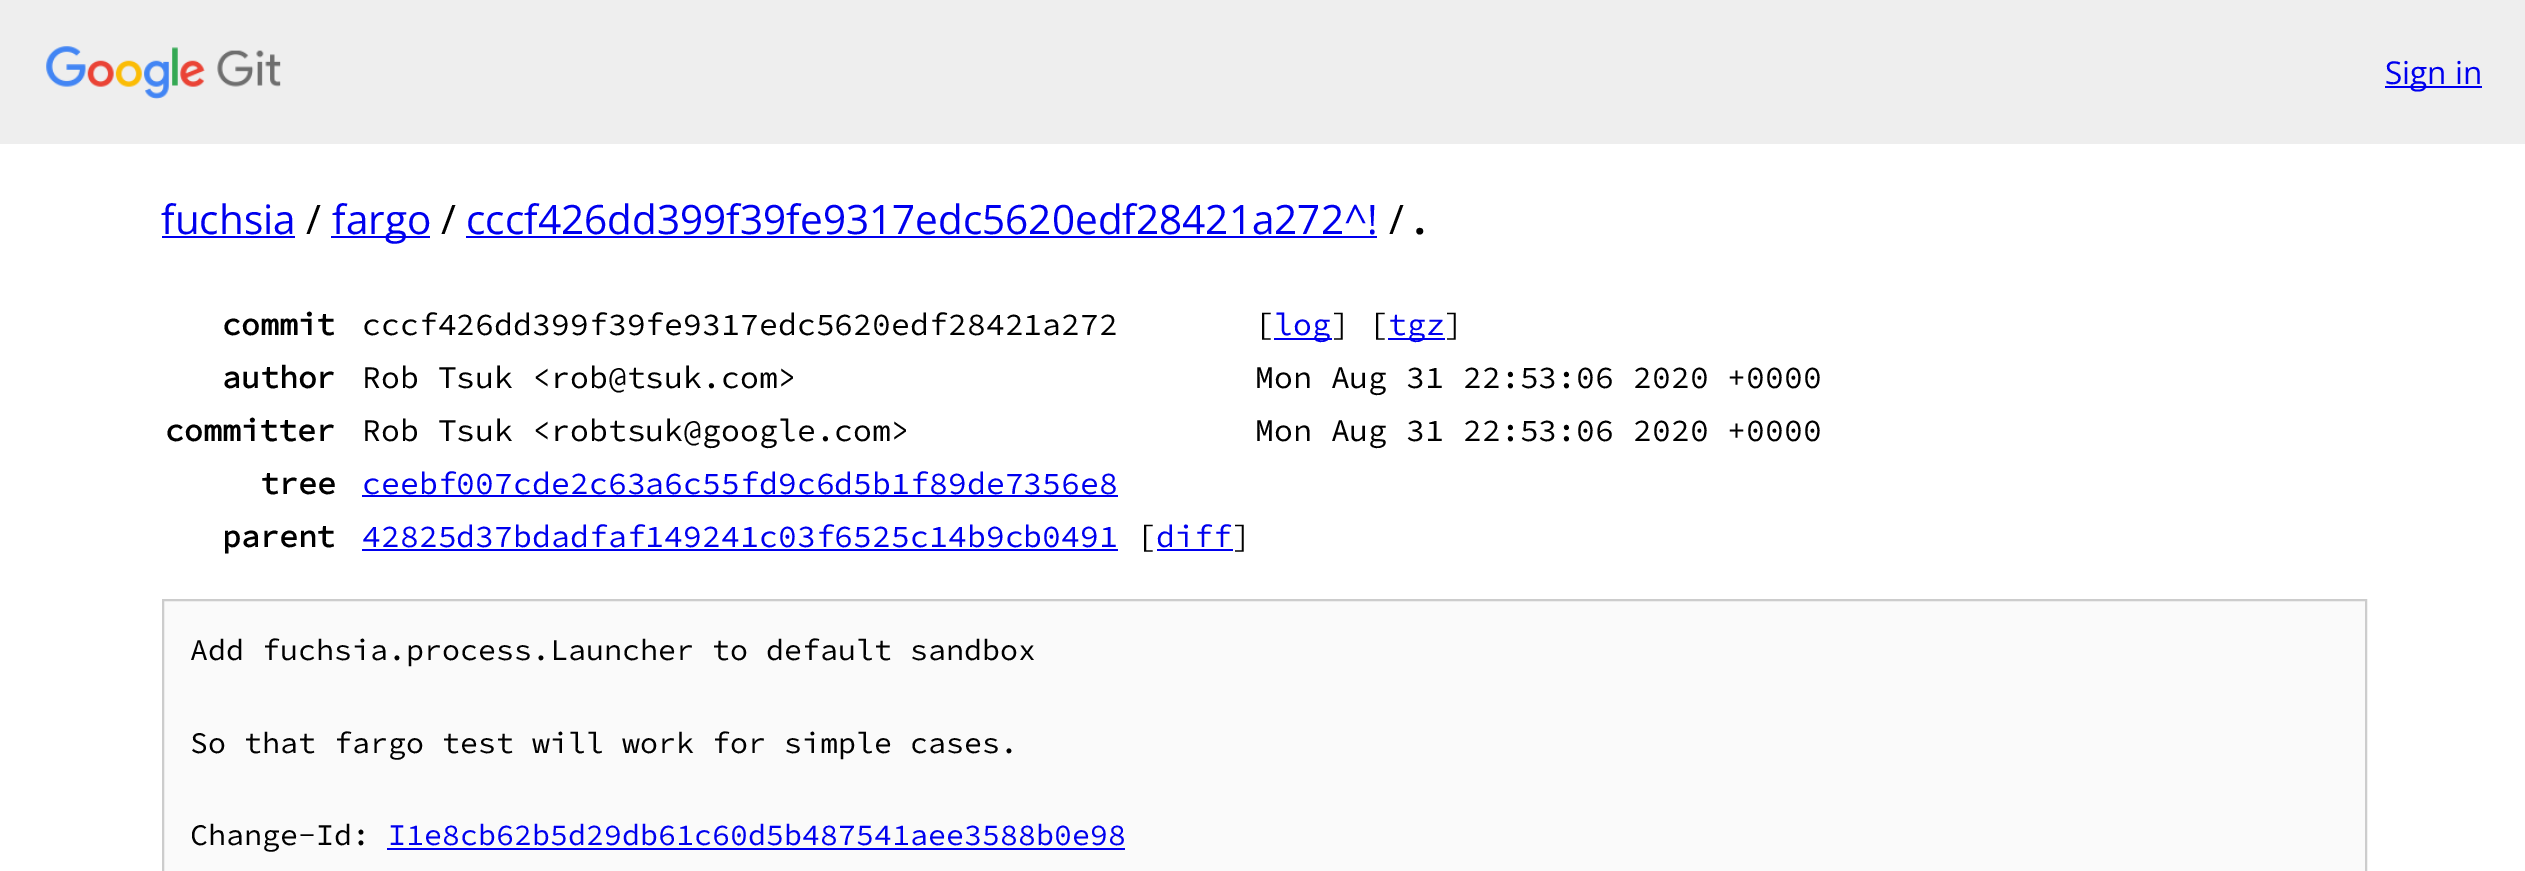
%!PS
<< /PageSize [2525 871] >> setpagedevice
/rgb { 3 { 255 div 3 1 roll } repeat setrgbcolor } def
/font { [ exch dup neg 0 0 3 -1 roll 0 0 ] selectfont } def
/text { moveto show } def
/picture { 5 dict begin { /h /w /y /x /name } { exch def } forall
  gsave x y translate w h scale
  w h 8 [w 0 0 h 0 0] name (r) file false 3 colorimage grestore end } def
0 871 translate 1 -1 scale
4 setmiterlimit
255 255 255 rgb
0 0 2525 871 rectfill
238 238 238 rgb
0 0 2525 144 rectfill
(img_01.rgb) 46 46 235 53 picture
0 0 238 rgb
2385 86 97 2 rectfill
162 236 133 2 rectfill
331 236 99 2 rectfill
466 236 911 2 rectfill
1274 338 58 2 rectfill
1388 338 57 2 rectfill
362 495 756 2 rectfill
362 549 756 2 rectfill
1157 549 76 2 rectfill
250 250 250 rgb
163 600 moveto 2203 0 rlineto 0 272 rlineto -2203 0 rlineto closepath gsave fill grestore
204 204 204 rgb
2 setlinewidth
stroke
0 0 238 rgb
387 848 738 2 rectfill
/OpenSans-Regular 31.5 font
(Sign in) 2385 84 text
/OpenSans-Regular 40.5 font
(fuchsia) 161 234 text
0 0 0 rgb
(/) 306 234 text
0 0 238 rgb
(fargo) 332 234 text
0 0 0 rgb
(/) 441 234 text
0 0 238 rgb
(cccf426dd399f39fe9317edc5620edf28421a272^!) 466 234 text
0 0 0 rgb
(/) 1389 234 text
/OpenSans-Bold 40.5 font
(.) 1414 234 text
/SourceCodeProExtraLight-Bold 31.5 font
(commit) 222 335 text
/SourceCodeProExtraLight-ExtraLight 31.5 font
(cccf426dd399f39fe9317edc5620edf28421a272) 362 335 text
([) 1255 335 text
0 0 238 rgb
(log) 1274 335 text
0 0 0 rgb
(] [) 1331 335 text
0 0 238 rgb
(tgz) 1388 335 text
0 0 0 rgb
(]) 1444 335 text
/SourceCodeProExtraLight-Bold 31.5 font
(author) 222 388 text
/SourceCodeProExtraLight-ExtraLight 31.5 font
(Rob Tsuk <rob@tsuk.com>) 362 388 text
(Mon Aug 31 22:53:06 2020 +0000) 1255 388 text
/SourceCodeProExtraLight-Bold 31.5 font
(committer) 165 441 text
/SourceCodeProExtraLight-ExtraLight 31.5 font
(Rob Tsuk <robtsuk@google.com>) 362 441 text
(Mon Aug 31 22:53:06 2020 +0000) 1255 441 text
/SourceCodeProExtraLight-Bold 31.5 font
(tree) 260 494 text
/SourceCodeProExtraLight-ExtraLight 31.5 font
0 0 238 rgb
(ceebf007cde2c63a6c55fd9c6d5b1f89de7356e8) 362 494 text
/SourceCodeProExtraLight-Bold 31.5 font
0 0 0 rgb
(parent) 222 547 text
/SourceCodeProExtraLight-ExtraLight 31.5 font
0 0 238 rgb
(42825d37bdadfaf149241c03f6525c14b9cb0491) 362 547 text
0 0 0 rgb
([) 1137 547 text
0 0 238 rgb
(diff) 1156 547 text
0 0 0 rgb
(]) 1232 547 text
/SourceCodeProExtraLight-ExtraLight 30 font
(Add fuchsia.process.Launcher to default sandbox) 190 660 text
(So that fargo test will work for simple cases.) 190 753 text
(Change-Id:) 190 845 text
0 0 238 rgb
(I1e8cb62b5d29db61c60d5b487541aee3588b0e98) 388 845 text
showpage
